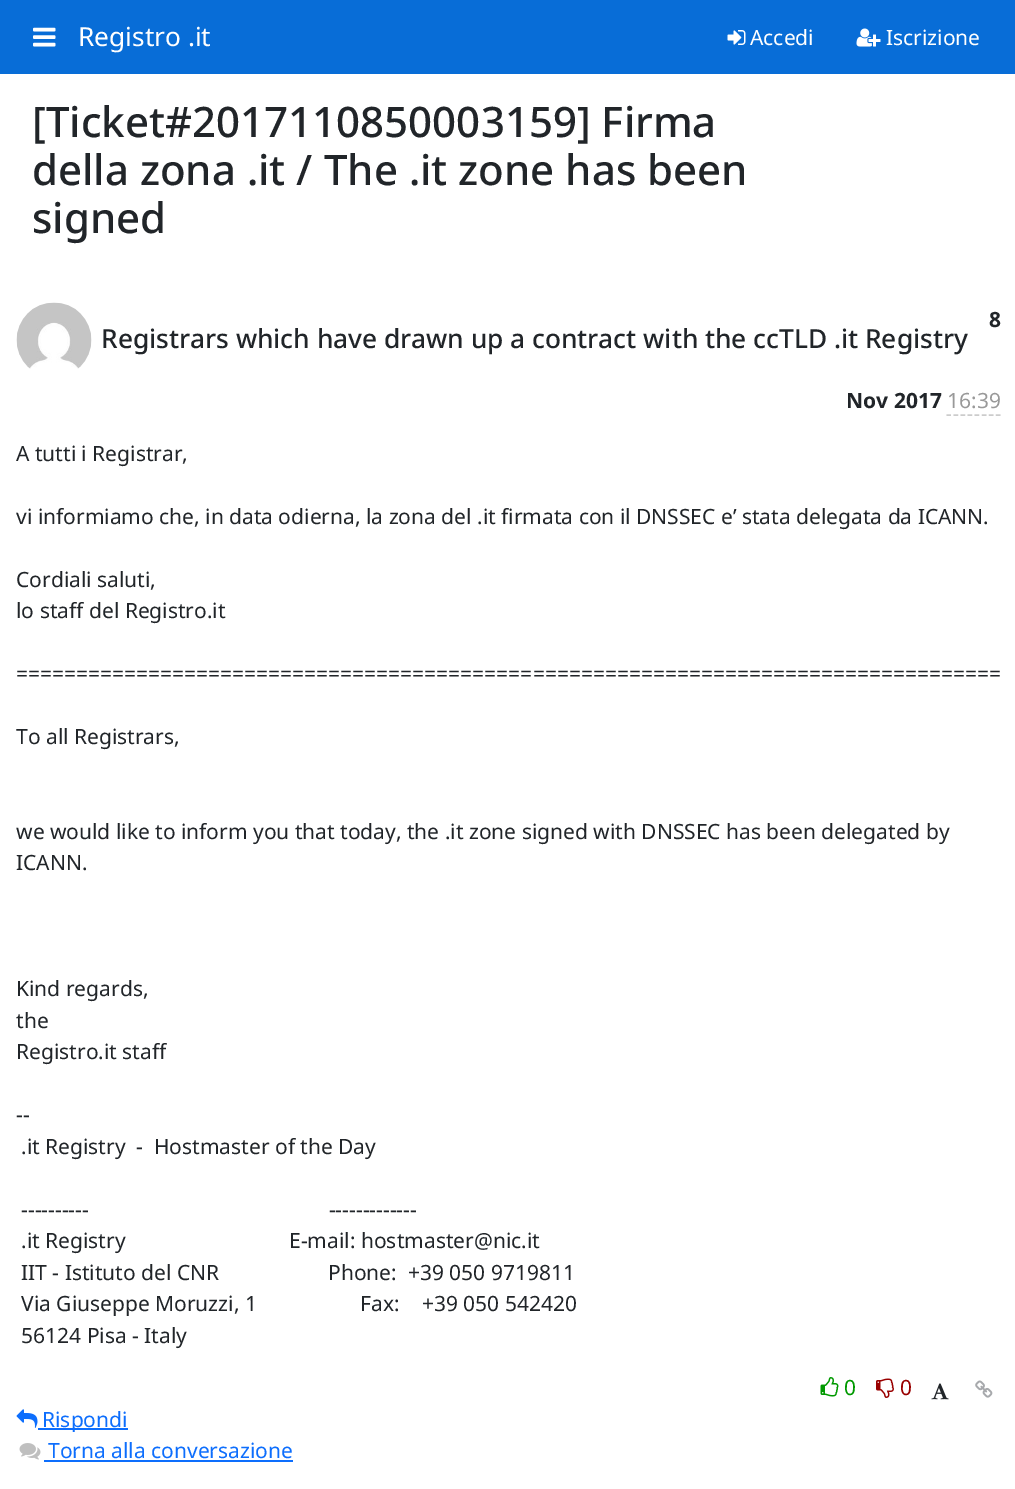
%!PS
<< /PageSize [1015 1489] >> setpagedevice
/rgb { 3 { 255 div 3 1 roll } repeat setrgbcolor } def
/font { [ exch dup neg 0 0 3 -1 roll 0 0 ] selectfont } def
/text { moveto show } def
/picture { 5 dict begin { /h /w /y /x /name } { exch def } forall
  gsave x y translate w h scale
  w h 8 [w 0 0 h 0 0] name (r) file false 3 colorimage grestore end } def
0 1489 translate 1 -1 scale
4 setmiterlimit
255 255 255 rgb
0 0 1015 1489 rectfill
8 109 215 rgb
0 0 1015 74 rectfill
(img_01.rgb) 33 27 23 20 picture
(img_02.rgb) 727 30 19 15 picture
(img_03.rgb) 856 28 25 19 picture
204 204 204 rgb
1.5 setlinewidth
[4.5 2.56] 0 setdash
946.5 415 moveto 54 0 rlineto stroke
(img_04.rgb) 16 302 76 67 picture
(img_05.rgb) 820 1377 19 20 picture
(img_06.rgb) 876 1378 18 20 picture
(img_07.rgb) 931 1383 18 17 picture
(img_08.rgb) 975 1380 18 18 picture
(img_09.rgb) 16 1409 22 19 picture
13 110 253 rgb
38 1428 90 2 rectfill
(img_10.rgb) 19 1443 22 17 picture
44 1460 249 2 rectfill
/NotoSans-Regular 26.25 font
255 255 255 rgb
(Registro .it) 78 46 text
/NotoSans-Regular 21 font
(Accedi) 750 45 text
(Iscrizione) 886 45 text
/NotoSans-Medium 42 font
33 37 41 rgb
([Ticket#2017110850003159] Firma) 32 137 text
(della zona .it / The .it zone has been) 32 185 text
(signed) 32 233 text
/NotoSans-Bold 21 font
(8) 989 327 text
(Nov 2017) 846 408 text
/NotoSans-Regular 21 font
153 153 153 rgb
(16:39) 947 408 text
/NotoSans-Medium 26.25 font
33 37 41 rgb
(Registrars which have drawn up a contract with the ccTLD .it Registry) 101 348 text
/NotoSans-Regular 21 font
(A tutti i Registrar,) 16 461 text
(vi informiamo che, in data odierna, la zona del .it firmata con il DNSSEC e’ stata delegata da ICANN.) 16 524 text
(Cordiali saluti,) 16 587 text
(lo staff del Registro.it) 16 618 text
(==================================================================================) 16 681 text
(To all Registrars,) 16 744 text
(we would like to inform you that today, the .it zone signed with DNSSEC has been delegated by) 16 839 text
(ICANN.) 16 870 text
(Kind regards,) 16 996 text
(the) 16 1028 text
(Registro.it staff) 16 1059 text
(--) 16 1122 text
(.it Registry  -  Hostmaster of the Day) 21 1154 text
(----------                                            -------------) 21 1217 text
(.it Registry                              E-mail: hostmaster@nic.it) 21 1248 text
(IIT - Istituto del CNR                    Phone:  +39 050 9719811) 21 1280 text
(Via Giuseppe Moruzzi, 1                   Fax:    +39 050 542420) 21 1311 text
(56124 Pisa - Italy) 21 1343 text
0 153 0 rgb
(0) 844 1395 text
153 0 0 rgb
(0) 900 1395 text
13 110 253 rgb
(Rispondi) 42 1427 text
(Torna alla conversazione) 48 1458 text
showpage
